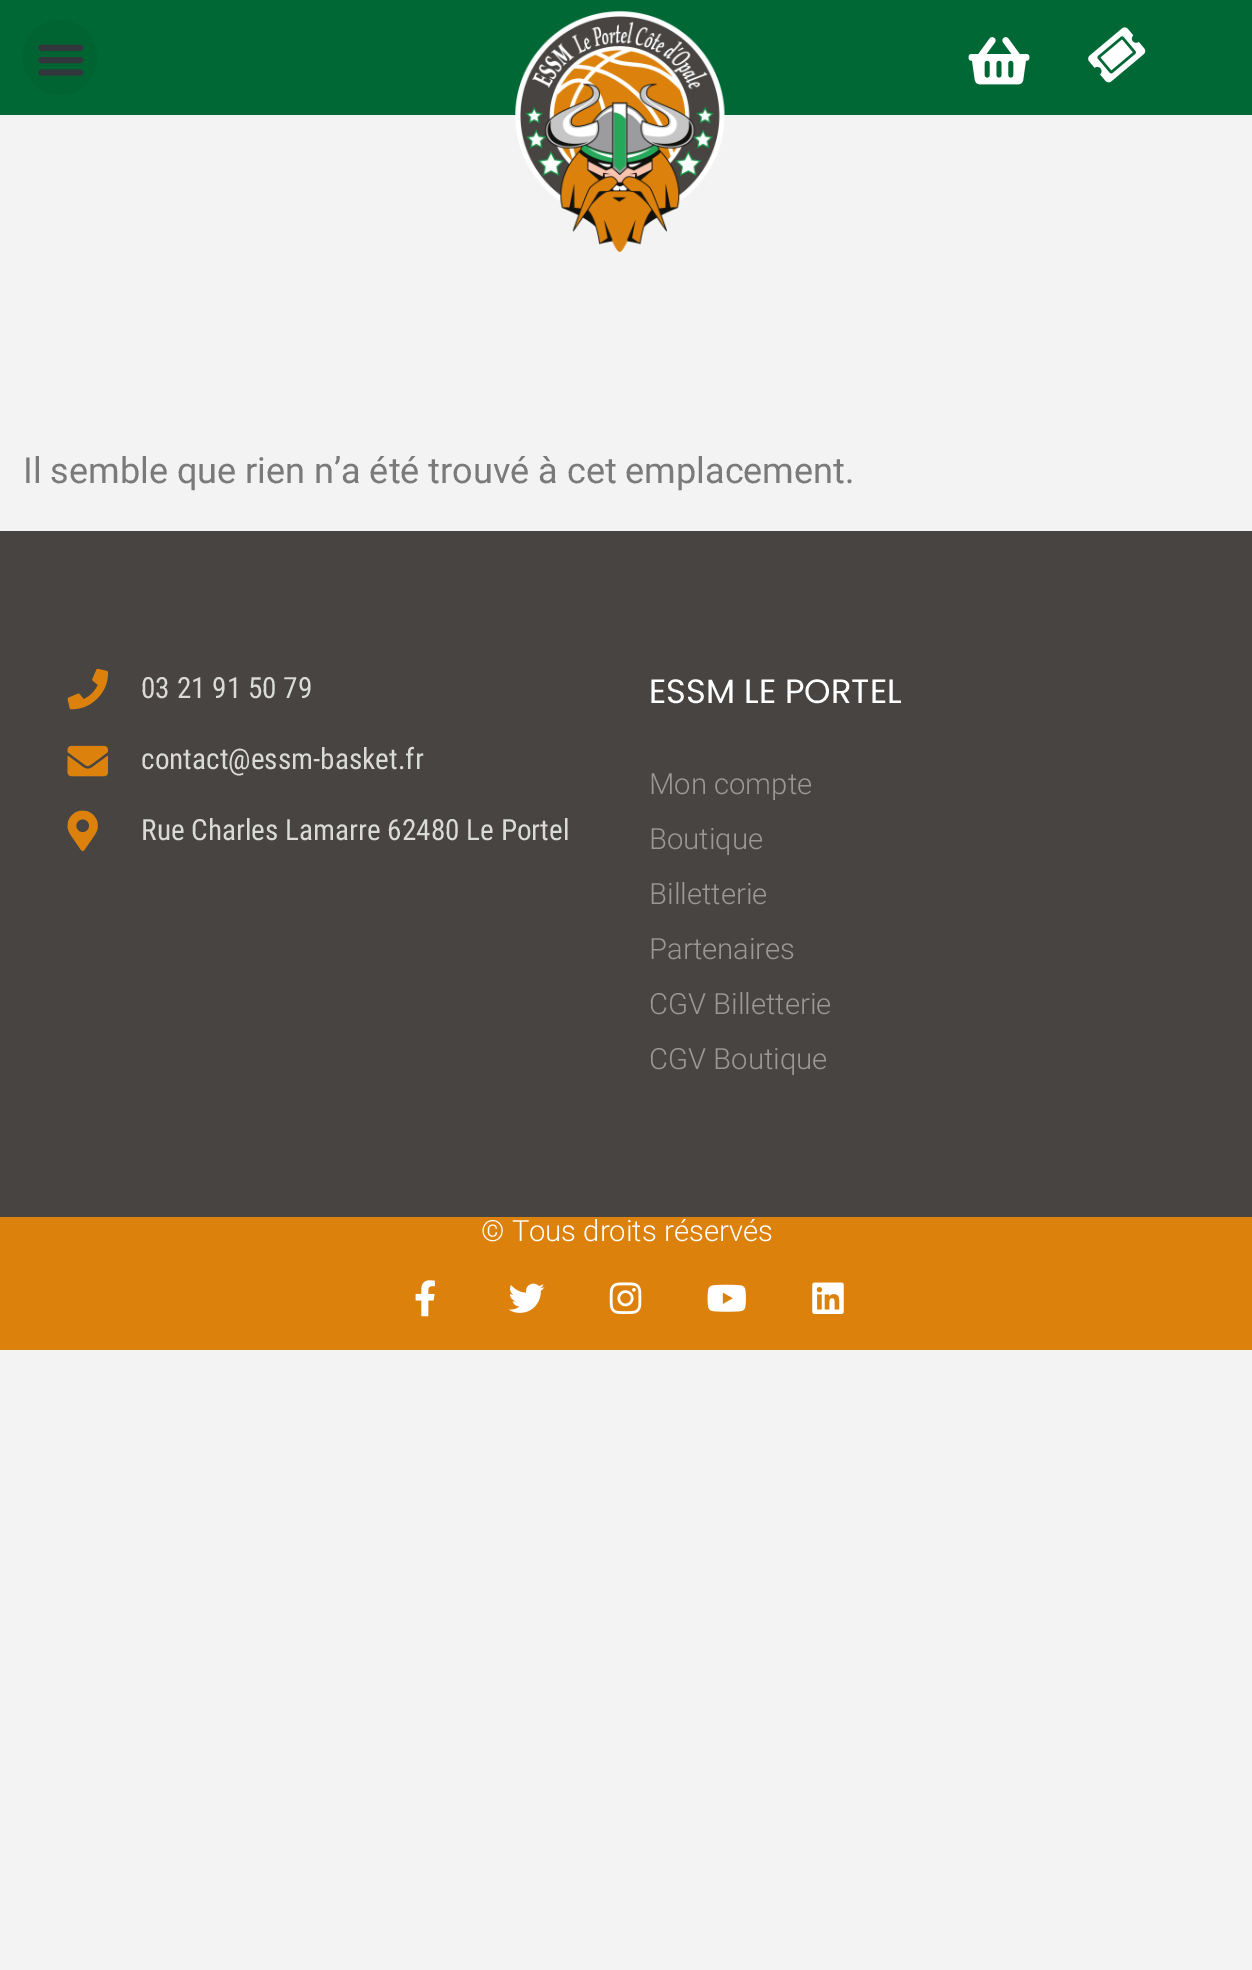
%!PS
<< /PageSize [1252 1970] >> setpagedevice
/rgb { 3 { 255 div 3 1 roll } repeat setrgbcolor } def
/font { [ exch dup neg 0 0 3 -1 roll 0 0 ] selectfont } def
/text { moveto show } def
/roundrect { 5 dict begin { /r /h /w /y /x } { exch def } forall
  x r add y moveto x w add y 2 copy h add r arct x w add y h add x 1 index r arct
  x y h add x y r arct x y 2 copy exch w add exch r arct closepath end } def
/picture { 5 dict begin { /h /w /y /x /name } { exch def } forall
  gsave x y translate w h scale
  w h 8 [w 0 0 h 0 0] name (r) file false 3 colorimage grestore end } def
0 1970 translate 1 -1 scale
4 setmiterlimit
243 243 243 rgb
0 0 1252 1970 rectfill
0 104 53 rgb
0 0 1252 115 rectfill
0 99 50 rgb
23 20 74 75 37 roundrect fill
(img_01.rgb) 38 44 46 32 picture
(img_02.rgb) 515 11 210 241 picture
(img_03.rgb) 968 37 62 48 picture
(img_04.rgb) 1088 27 58 56 picture
71 68 65 rgb
0 531 1252 686 rectfill
(img_05.rgb) 67 668 42 42 picture
(img_06.rgb) 67 745 41 32 picture
(img_07.rgb) 67 810 31 41 picture
220 130 12 rgb
0 1217 1252 133 rectfill
(img_08.rgb) 415 1280 20 37 picture
(img_09.rgb) 508 1283 37 30 picture
(img_10.rgb) 609 1282 33 32 picture
(img_11.rgb) 707 1284 39 28 picture
(img_12.rgb) 812 1282 32 32 picture
/Roboto-Regular 36 font
122 122 122 rgb
(Il semble que rien n’a été trouvé à cet emplacement.) 23 483 text
/RobotoCondensed-Regular 29.25 font
218 218 217 rgb
(03 21 91 50 79) 141 698 text
(contact@essm-basket.fr) 141 769 text
(Rue Charles Lamarre 62480 Le Portel) 141 840 text
/Poppins-Regular 33.75 font
255 255 255 rgb
(ESSM LE PORTEL) 649 703 text
/Roboto-Light 29.25 font
154 152 151 rgb
(Mon compte) 649 794 text
(Boutique) 649 849 text
(Billetterie) 649 904 text
(Partenaires) 649 959 text
(CGV Billetterie) 649 1014 text
(CGV Boutique) 649 1069 text
255 255 255 rgb
(© Tous droits réservés) 481 1241 text
showpage
